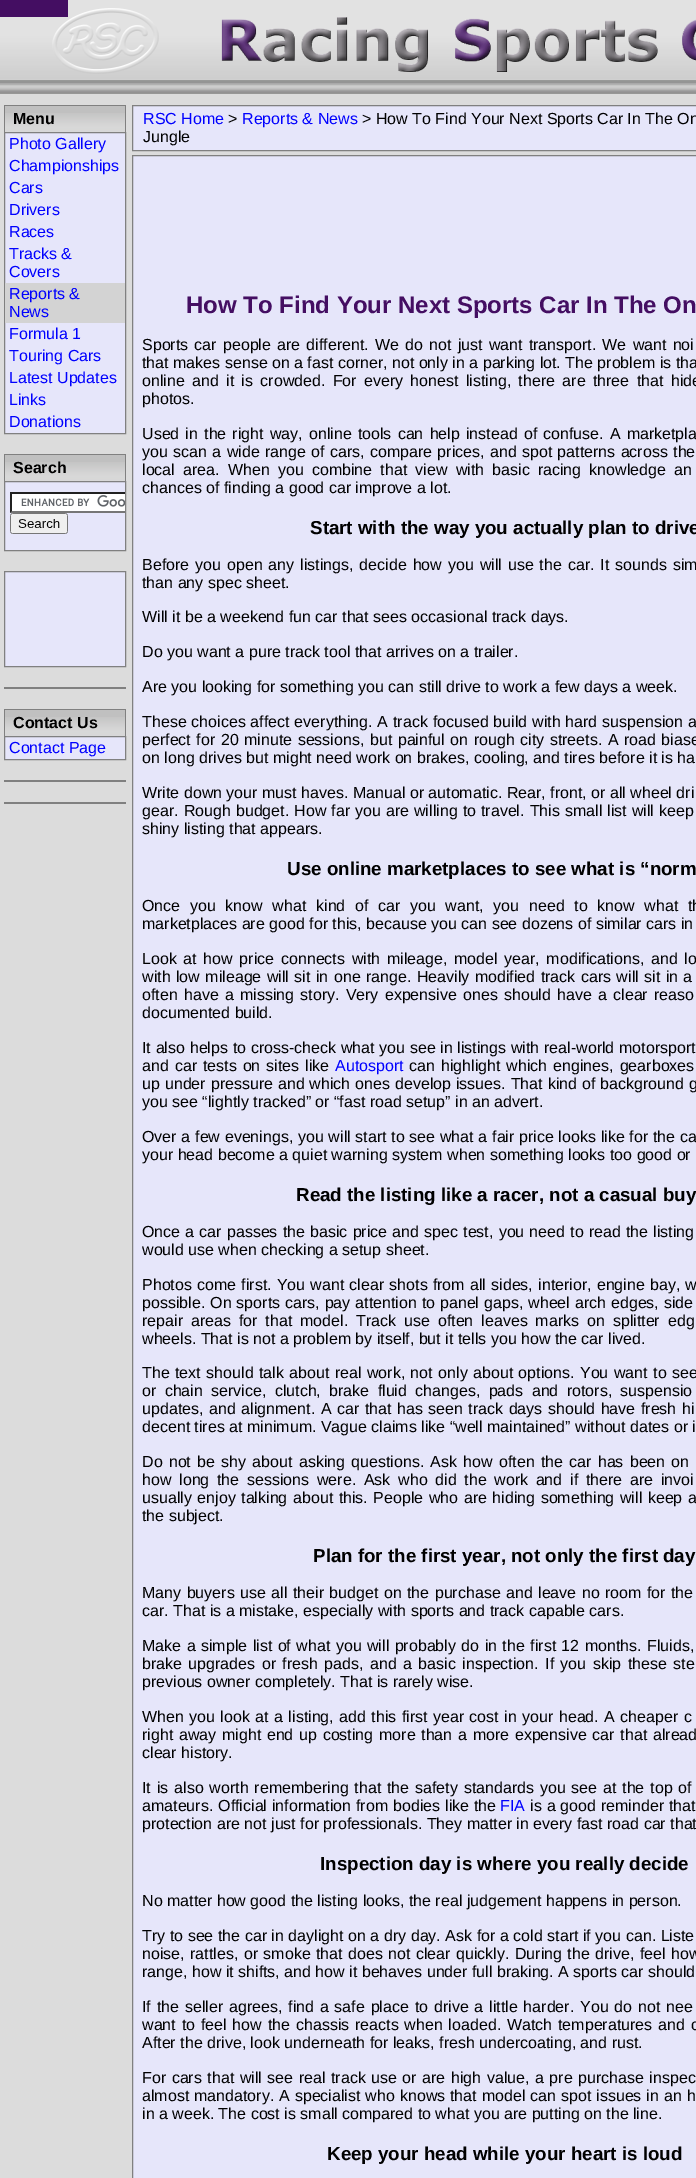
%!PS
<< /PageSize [696 2178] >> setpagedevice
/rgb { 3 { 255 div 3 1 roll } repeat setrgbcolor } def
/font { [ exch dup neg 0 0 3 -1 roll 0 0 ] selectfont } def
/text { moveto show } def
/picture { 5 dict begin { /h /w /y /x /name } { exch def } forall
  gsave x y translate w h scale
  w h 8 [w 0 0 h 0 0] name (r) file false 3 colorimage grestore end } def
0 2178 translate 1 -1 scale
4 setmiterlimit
220 220 220 rgb
0 0 696 2178 rectfill
(img_01.rgb) 0 0 696 94 picture
(img_02.rgb) 52 8 107 66 picture
68 14 98 rgb
0 0 68 17 rectfill
(img_03.rgb) 221 17 475 55 picture
192 192 192 rgb
5 106 120 7 rectfill
(img_04.rgb) 5 113 120 19 picture
128 128 128 rgb
4 105 122 1 rectfill
125 105 1 27 rectfill
4 105 1 27 rectfill
230 230 250 rgb
4.5 132.5 moveto 121 0 rlineto 0 301 rlineto -121 0 rlineto closepath gsave fill grestore
128 128 128 rgb
stroke
211 211 211 rgb
5 283 120 40 rectfill
192 192 192 rgb
5 455 120 7 rectfill
(img_04.rgb) 5 462 120 19 picture
128 128 128 rgb
4 454 122 1 rectfill
125 454 1 27 rectfill
4 454 1 27 rectfill
230 230 250 rgb
4.5 481.5 moveto 121 0 rlineto 0 69 rlineto -121 0 rlineto closepath gsave fill grestore
128 128 128 rgb
stroke
(img_05.rgb) 10 492 115 42 picture
230 230 250 rgb
4.5 571.5 moveto 121 0 rlineto 0 95 rlineto -121 0 rlineto closepath gsave fill grestore
128 128 128 rgb
stroke
4 687 122 2 rectfill
192 192 192 rgb
5 710 120 7 rectfill
(img_04.rgb) 5 717 120 19 picture
128 128 128 rgb
4 709 122 1 rectfill
125 709 1 27 rectfill
4 709 1 27 rectfill
230 230 250 rgb
4.5 736.5 moveto 121 0 rlineto 0 23 rlineto -121 0 rlineto closepath gsave fill grestore
128 128 128 rgb
stroke
4 780 122 2 rectfill
4 802 122 2 rectfill
230 230 250 rgb
132.5 105.5 moveto 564 0 rlineto 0 45 rlineto -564 0 rlineto closepath gsave fill grestore
128 128 128 rgb
stroke
230 230 250 rgb
132.5 155.5 moveto 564 0 rlineto 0 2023 rlineto -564 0 rlineto closepath gsave fill grestore
128 128 128 rgb
stroke
/LiberationSans-Bold 16 font
0 0 0 rgb
(Menu) 13 124 text
/LiberationSans-Regular 16 font
0 0 255 rgb
(Photo Gallery) 9 149 text
(Championships) 9 171 text
(Cars) 9 193 text
(Drivers) 9 215 text
(Races) 9 237 text
(Tracks &) 9 259 text
(Covers) 9 277 text
(Reports &) 9 299 text
(News) 9 317 text
(Formula 1) 9 339 text
(Touring Cars) 9 361 text
(Latest Updates) 9 383 text
(Links) 9 405 text
(Donations) 9 427 text
/LiberationSans-Bold 16 font
0 0 0 rgb
(Search) 13 473 text
(Contact Us) 13 728 text
/LiberationSans-Regular 16 font
0 0 255 rgb
(Contact Page) 9 753 text
(RSC Home) 143 124 text
0 0 0 rgb
(>) 228 124 text
0 0 255 rgb
(Reports & News) 242 124 text
0 0 0 rgb
(> How To Find Your Next Sports Car In The On) 362 124 text
(Jungle) 143 142 text
/LiberationSans-Bold 24 font
68 14 98 rgb
(How To Find Your Next Sports Car In The On) 186 313 text
/LiberationSans-Regular 16 font
0 0 0 rgb
142 350 moveto 1.75 0 32 (Sports car people are different. We do not just want transport. We want noi) widthshow
(that makes sense on a fast corner, not only in a parking lot. The problem is tha) 142 368 text
142 386 moveto 2.9 0 32 (online and it is crowded. For every honest listing, there are three that hide) widthshow
(photos.) 142 404 text
142 439 moveto 1.7 0 32 (Used in the right way, online tools can help instead of confuse. A marketpla) widthshow
142 457 moveto 0.9 0 32 (you scan a wide range of cars, compare prices, and spot patterns across the) widthshow
142 475 moveto 3.75 0 32 (local area. When you combine that view with basic racing knowledge an) widthshow
(chances of finding a good car improve a lot.) 142 493 text
/LiberationSans-Bold 18.75 font
(Start with the way you actually plan to drive) 310 534 text
/LiberationSans-Regular 16 font
142 570 moveto 1.5 0 32 (Before you open any listings, decide how you will use the car. It sounds sim) widthshow
(than any spec sheet.) 142 588 text
(Will it be a weekend fun car that sees occasional track days.) 142 622 text
(Do you want a pure track tool that arrives on a trailer.) 142 657 text
(Are you looking for something you can still drive to work a few days a week.) 142 692 text
142 727 moveto 0.4 0 32 (These choices affect everything. A track focused build with hard suspension a) widthshow
142 745 moveto 1.1 0 32 (perfect for 20 minute sessions, but painful on rough city streets. A road biase) widthshow
(on long drives but might need work on brakes, cooling, and tires before it is ha) 142 763 text
(Write down your must haves. Manual or automatic. Rear, front, or all wheel dri) 142 798 text
142 816 moveto 0.6 0 32 (gear. Rough budget. How far you are willing to travel. This small list will keep) widthshow
(shiny listing that appears.) 142 834 text
/LiberationSans-Bold 18.75 font
(Use online marketplaces to see what is “norm) 287 875 text
/LiberationSans-Regular 16 font
142 911 moveto 5.25 0 32 (Once you know what kind of car you want, you need to know what th) widthshow
(marketplaces are good for this, because you can see dozens of similar cars in) 142 929 text
142 964 moveto 2.25 0 32 (Look at how price connects with mileage, model year, modifications, and lo) widthshow
142 982 moveto 1 0 32 (with low mileage will sit in one range. Heavily modified track cars will sit in a) widthshow
142 1000 moveto 1.75 0 32 (often have a missing story. Very expensive ones should have a clear reaso) widthshow
(documented build.) 142 1018 text
142 1053 moveto 0.25 0 32 (It also helps to cross-check what you see in listings with real-world motorsport) widthshow
142 1071 moveto 1.5 0 32 (and car tests on sites like) widthshow
0 0 255 rgb
(Autosport) 335 1071 text
0 0 0 rgb
409 1071 moveto 1.5 0 32 (can highlight which engines, gearboxes) widthshow
142 1089 moveto 0.5 0 32 (up under pressure and which ones develop issues. That kind of background g) widthshow
(you see “lightly tracked” or “fast road setup” in an advert.) 142 1107 text
142 1142 moveto 0.3 0 32 (Over a few evenings, you will start to see what a fair price looks like for the ca) widthshow
(your head become a quiet warning system when something looks too good or) 142 1160 text
/LiberationSans-Bold 18.75 font
(Read the listing like a racer, not a casual buy) 296 1201 text
/LiberationSans-Regular 16 font
142 1237 moveto 0.7 0 32 (Once a car passes the basic price and spec test, you need to read the listing) widthshow
(would use when checking a setup sheet.) 142 1255 text
142 1290 moveto 0.75 0 32 (Photos come first. You want clear shots from all sides, interior, engine bay, w) widthshow
142 1308 moveto 0.5 0 32 (possible. On sports cars, pay attention to panel gaps, wheel arch edges, side) widthshow
142 1326 moveto 3.5 0 32 (repair areas for that model. Track use often leaves marks on splitter edg) widthshow
(wheels. That is not a problem by itself, but it tells you how the car lived.) 142 1344 text
142 1378 moveto 1 0 32 (The text should talk about real work, not only about options. You want to see) widthshow
142 1396 moveto 3.9 0 32 (or chain service, clutch, brake fluid changes, pads and rotors, suspensio) widthshow
142 1414 moveto 1.1 0 32 (updates, and alignment. A car that has seen track days should have fresh hi) widthshow
(decent tires at minimum. Vague claims like “well maintained” without dates or i) 142 1432 text
142 1467 moveto 1.8 0 32 (Do not be shy about asking questions. Ask how often the car has been on) widthshow
142 1485 moveto 3.25 0 32 (how long the sessions were. Ask who did the work and if there are invoi) widthshow
142 1503 moveto 1.1 0 32 (usually enjoy talking about this. People who are hiding something will keep a) widthshow
(the subject.) 142 1521 text
/LiberationSans-Bold 18.75 font
(Plan for the first year, not only the first day) 313 1562 text
/LiberationSans-Regular 16 font
142 1598 moveto 1 0 32 (Many buyers use all their budget on the purchase and leave no room for the) widthshow
(car. That is a mistake, especially with sports and track capable cars.) 142 1616 text
142 1651 moveto 1 0 32 (Make a simple list of what you will probably do in the first 12 months. Fluids,) widthshow
142 1669 moveto 2 0 32 (brake upgrades or fresh pads, and a basic inspection. If you skip these ste) widthshow
(previous owner completely. That is rarely wise.) 142 1687 text
142 1722 moveto 1 0 32 (When you look at a listing, add this first year cost in your head. A cheaper c) widthshow
142 1740 moveto 1.25 0 32 (right away might end up costing more than a more expensive car that alread) widthshow
(clear history.) 142 1758 text
142 1793 moveto 1.4 0 32 (It is also worth remembering that the safety standards you see at the top of) widthshow
142 1811 moveto 0.5 0 32 (amateurs. Official information from bodies like the) widthshow
0 0 255 rgb
(FIA) 500 1811 text
0 0 0 rgb
530 1811 moveto 0.5 0 32 (is a good reminder that) widthshow
(protection are not just for professionals. They matter in every fast road car that) 142 1829 text
/LiberationSans-Bold 18.75 font
(Inspection day is where you really decide) 320 1870 text
/LiberationSans-Regular 16 font
(No matter how good the listing looks, the real judgement happens in person.) 142 1906 text
142 1941 moveto 0.1 0 32 (Try to see the car in daylight on a dry day. Ask for a cold start if you can. Liste) widthshow
142 1959 moveto 1 0 32 (noise, rattles, or smoke that does not clear quickly. During the drive, feel how) widthshow
(range, how it shifts, and how it behaves under full braking. A sports car should) 142 1977 text
142 2012 moveto 1.4 0 32 (If the seller agrees, find a safe place to drive a little harder. You do not nee) widthshow
142 2030 moveto 1.4 0 32 (want to feel how the chassis reacts when loaded. Watch temperatures and c) widthshow
(After the drive, look underneath for leaks, fresh undercoating, and rust.) 142 2048 text
142 2083 moveto 1.1 0 32 (For cars that will see real track use or are high value, a pre purchase inspec) widthshow
142 2101 moveto 0.5 0 32 (almost mandatory. A specialist who knows that model can spot issues in an h) widthshow
(in a week. The cost is small compared to what you are putting on the line.) 142 2119 text
/LiberationSans-Bold 18.75 font
(Keep your head while your heart is loud) 327 2160 text
showpage
